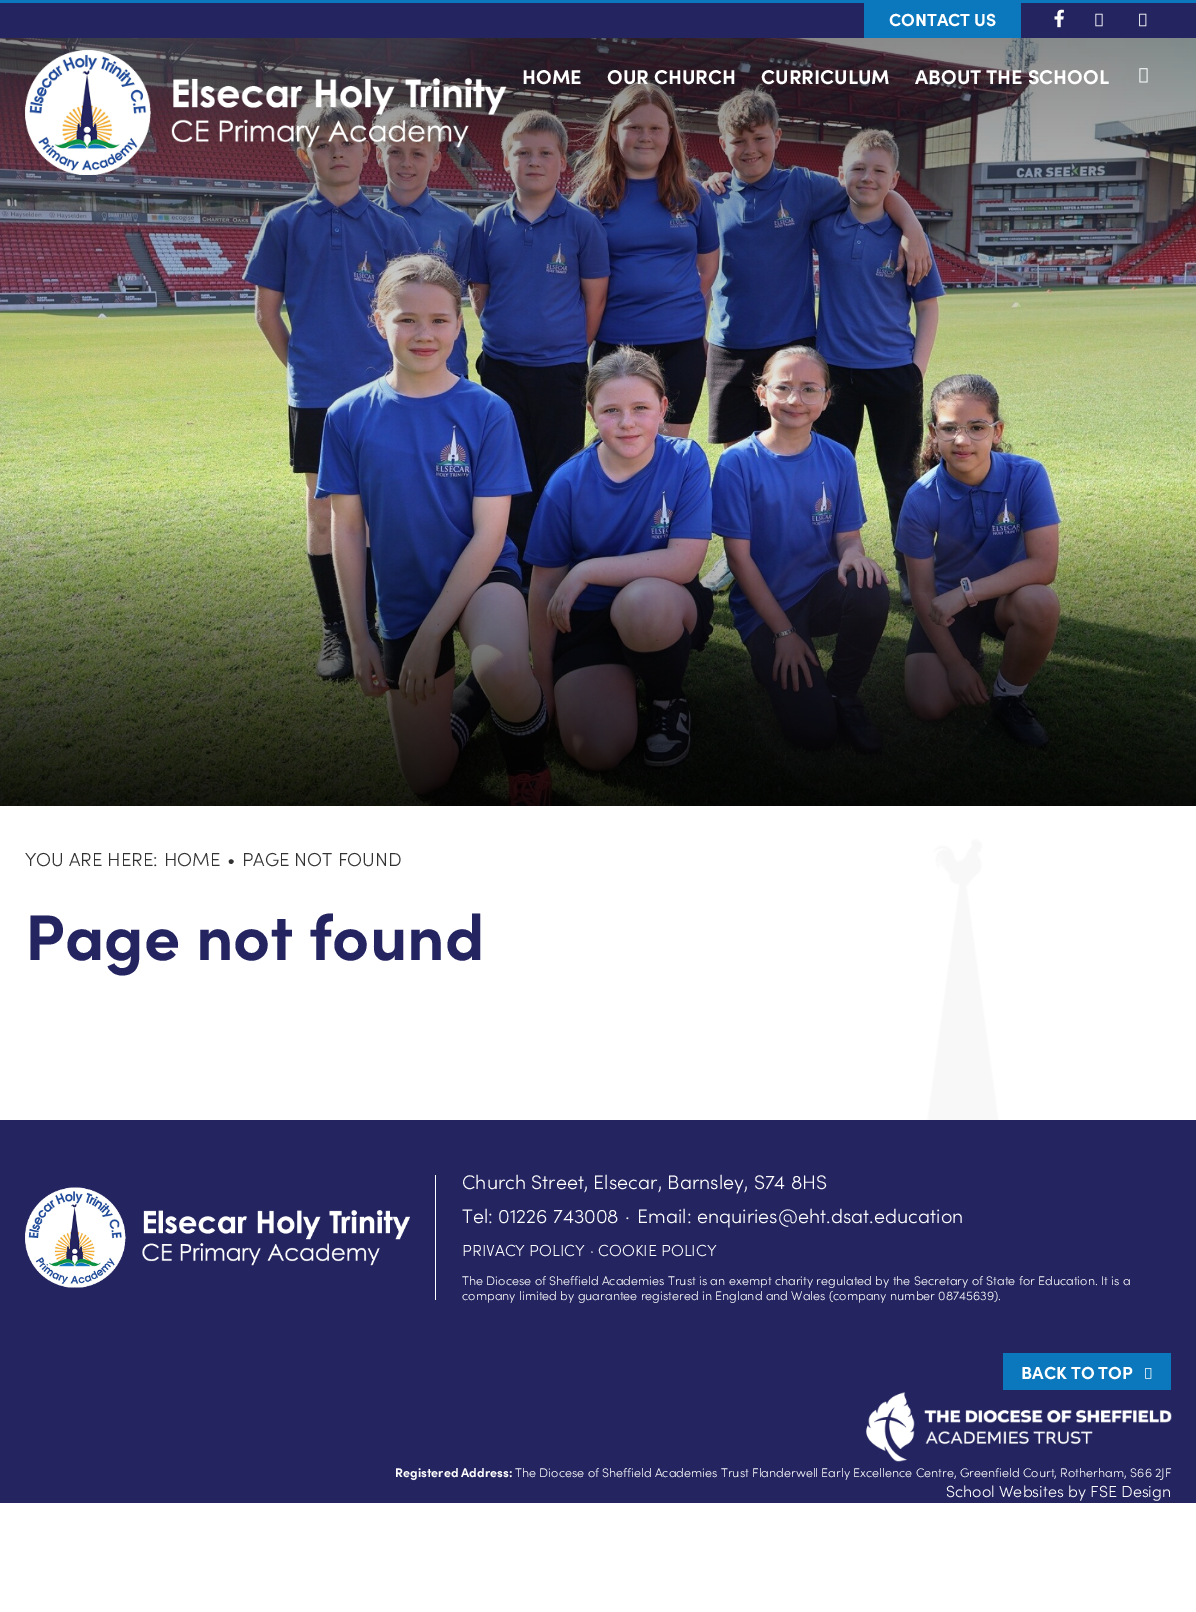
%!PS
<< /PageSize [1196 1612] >> setpagedevice
/rgb { 3 { 255 div 3 1 roll } repeat setrgbcolor } def
/font { [ exch dup neg 0 0 3 -1 roll 0 0 ] selectfont } def
/text { moveto show } def
/picture { 5 dict begin { /h /w /y /x /name } { exch def } forall
  gsave x y translate w h scale
  w h 8 [w 0 0 h 0 0] name (r) file false 3 colorimage grestore end } def
0 1612 translate 1 -1 scale
4 setmiterlimit
255 255 255 rgb
0 0 1196 1612 rectfill
11 120 189 rgb
0 0 1196 3 rectfill
36 36 96 rgb
0 3 1196 35 rectfill
11 120 189 rgb
864 3 157 35 rectfill
(img_01.rgb) 1054 9 10 19 picture
(img_02.rgb) 1095 13 8 14 picture
(img_03.rgb) 1139 13 8 14 picture
(img_06.rgb) 0 38 1196 768 picture
(img_04.rgb) 25 50 482 125 picture
(img_05.rgb) 1139 68 9 15 picture
(img_07.rgb) 926 839 74 281 picture
36 36 96 rgb
0 1120 1196 383 rectfill
255 255 255 rgb
435 1175 1 125 rectfill
(img_08.rgb) 25 1187 385 101 picture
11 120 189 rgb
1003 1353 168 37 rectfill
(img_09.rgb) 1145 1368 7 11 picture
(img_10.rgb) 866 1392 306 70 picture
/Sofia-Bold 17.5 font
255 255 255 rgb
(CONTACT US) 889 26 text
/Sofia-Bold 20 font
(HOME) 522 84 text
(OUR CHURCH) 607 84 text
(CURRICULUM) 761 84 text
(ABOUT THE SCHOOL) 915 84 text
/Sofia-Light 18.75 font
51 51 51 rgb
(YOU ARE HERE:) 25 866 text
(HOME) 164 866 text
(•) 227 866 text
(PAGE NOT FOUND) 242 866 text
/Sofia-Bold 64.5 font
36 36 96 rgb
(Page not found) 25 960 text
/Sofia-Light 19.7 font
255 255 255 rgb
(Church Street, Elsecar, Barnsley, S74 8HS) 462 1189 text
(Tel: 01226 743008) 462 1223 text
(·) 625 1223 text
(Email: enquiries@eht.dsat.education) 637 1223 text
/Sofia-Light 16.1 font
(PRIVACY POLICY) 462 1256 text
(·) 590 1256 text
(COOKIE POLICY) 598 1256 text
/Sofia-Light 12.53 font
(The Diocese of Sheffield Academies Trust is an exempt charity regulated by the Secretary of State for Education. It is a) 462 1285 text
(company limited by guarantee registered in England and Wales \(company number 08745639\).) 462 1300 text
/Sofia-Bold 17.5 font
(BACK TO TOP) 1021 1379 text
/Sofia-Bold 12.53 font
(Registered Address:) 395 1477 text
/Sofia-Light 12.53 font
(The Diocese of Sheffield Academies Trust Flanderwell Early Excellence Centre, Greenfield Court, Rotherham, S66 2JF) 515 1477 text
/Sofia-Light 16.1 font
(School Websites by FSE Design) 946 1497 text
showpage
